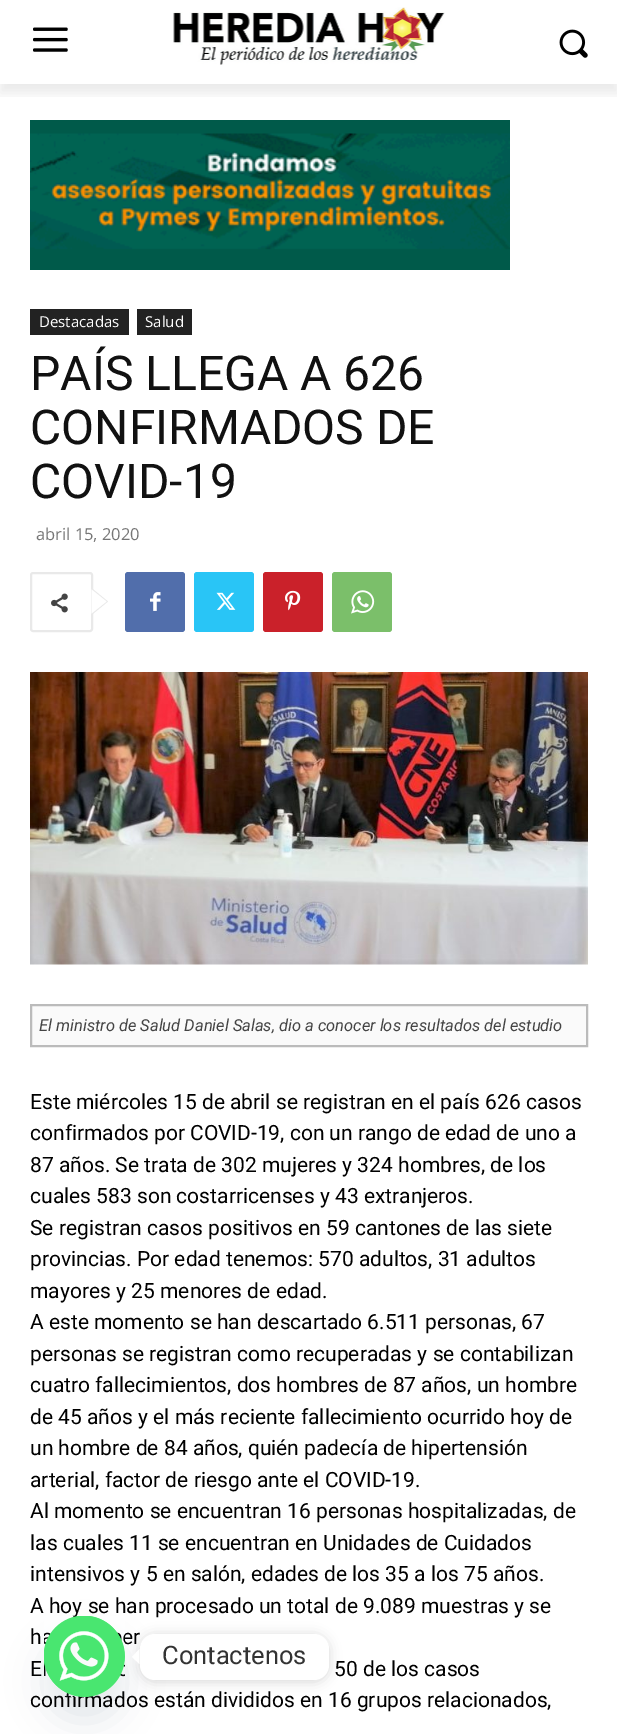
%!PS
<< /PageSize [617 1734] /PageUsesTransparency true >> setpagedevice
/rgb { 3 { 255 div 3 1 roll } repeat setrgbcolor } def
/font { [ exch dup neg 0 0 3 -1 roll 0 0 ] selectfont } def
/text { moveto show } def
/alpha { dup .setfillconstantalpha .setstrokeconstantalpha } def
/circle { newpath 0 360 arc closepath } def
/roundrect { 5 dict begin { /r /h /w /y /x } { exch def } forall
  x r add y moveto x w add y 2 copy h add r arct x w add y h add x 1 index r arct
  x y h add x y r arct x y 2 copy exch w add exch r arct closepath end } def
/shadow { 12 dict begin { /a /b /q /h /w /y /x } { exch def } forall gsave /was 0 def
  9 -2 -9 { dup b mul 4 div /e exch def 1 sub .425 mul 2.718 exch exp 1 add a .99 .min exch div /now exch def
    1 1 now sub 1 was sub div sub alpha /was now def
    w h .min e 2 mul add 0 gt { x e sub y e sub w e 2 mul add h e 2 mul add
      q e add b .6 mul add w h .min 2 div e add .min 0 .max roundrect fill } if } for grestore end } def
/picture { 5 dict begin { /h /w /y /x /name } { exch def } forall
  gsave x y translate w h scale
  w h 8 [w 0 0 h 0 0] name (r) file false 3 colorimage grestore end } def
0 .pushpdf14devicefilter
0 1734 translate 1 -1 scale
4 setmiterlimit
255 255 255 rgb
0 0 617 1734 rectfill
(img_01.rgb) 33 27 35 25 picture
(img_02.rgb) 173 7 272 58 picture
(img_03.rgb) 559 29 29 29 picture
gsave
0 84 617 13 rectclip
0 0 0 rgb
0 9 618 84 0 6 0.08 shadow
grestore
(img_04.rgb) 30 120 480 150 picture
34 34 34 rgb
30 309 99 26 rectfill
137 309 55 26 rectfill
233 233 233 rgb
2 setlinewidth
31 573 61 58 2 roundrect stroke
91.5 615 moveto 0 -27 rlineto 16.5 13.5 rlineto closepath fill
(img_05.rgb) 51 593 17 20 picture
255 255 255 rgb
91.5 613.5 moveto 0 -24 rlineto 15 12 rlineto closepath fill
81 110 171 rgb
125 572 60 60 3 roundrect fill
(img_06.rgb) 150 592 11 19 picture
41 197 246 rgb
194 572 60 60 3 roundrect fill
(img_07.rgb) 216 592 20 18 picture
202 33 42 rgb
263 572 60 60 3 roundrect fill
(img_08.rgb) 285 590 16 21 picture
123 191 106 rgb
332 572 60 60 3 roundrect fill
(img_09.rgb) 351 590 24 24 picture
(img_10.rgb) 30 672 558 293 picture
250 250 250 rgb
31 1005 moveto 556 0 rlineto 0 41 rlineto -556 0 rlineto closepath gsave fill grestore
187 187 187 rgb
stroke
73 104 126 rgb
44 1640 81 81 40.5 18 0.16 shadow
/OpenSans-Regular 15 font
255 255 255 rgb
(Destacadas) 39 327 text
(Salud) 145 327 text
/Roboto-Regular 48 font
17 17 17 rgb
(PAÍS LLEGA A 626) 30 390 text
(CONFIRMADOS DE) 30 444 text
(COVID-19) 30 498 text
/OpenSans-Regular 16.5 font
118 118 118 rgb
(abril 15, 2020) 36 540 text
/Roboto-Italic 16.5 font
68 68 68 rgb
(El ministro de Salud Daniel Salas, dio a conocer los resultados del estudio) 39 1031 text
/Roboto-Regular 21 font
0 0 0 rgb
(Este miércoles 15 de abril se registran en el país 626 casos) 30 1109 text
(confirmados por COVID-19, con un rango de edad de uno a) 30 1140 text
(87 años. Se trata de 302 mujeres y 324 hombres, de los) 30 1172 text
(cuales 583 son costarricenses y 43 extranjeros.) 30 1203 text
(Se registran casos positivos en 59 cantones de las siete) 30 1235 text
(provincias. Por edad tenemos: 570 adultos, 31 adultos) 30 1266 text
(mayores y 25 menores de edad.) 30 1298 text
(A este momento se han descartado 6.511 personas, 67) 30 1329 text
(personas se registran como recuperadas y se contabilizan) 30 1361 text
(cuatro fallecimientos, dos hombres de 87 años, un hombre) 30 1392 text
(de 45 años y el más reciente fallecimiento ocurrido hoy de) 30 1424 text
(un hombre de 84 años, quién padecía de hipertensión) 30 1455 text
(arterial, factor de riesgo ante el COVID-19.) 30 1487 text
(Al momento se encuentran 16 personas hospitalizadas, de) 30 1518 text
(las cuales 11 se encuentran en Unidades de Cuidados) 30 1550 text
(intensivos y 5 en salón, edades de los 35 a los 75 años.) 30 1581 text
(A hoy se han procesado un total de 9.089 muestras y se) 30 1613 text
(h) 30 1644 text
(er) 122 1644 text
(E) 30 1676 text
(50 de los casos) 334 1676 text
(confirmados están divididos en 16 grupos relacionados,) 30 1707 text
73 230 112 rgb
84.5 1656.5 40.5 circle fill
(img_11.rgb) 44 1616 81 81 picture
0 0 0 rgb
140 1635 189 47 15 6 0.15 shadow
255 255 255 rgb
140 1634 189 46 15 roundrect fill
139.5 1649 moveto 0 15 rlineto -7.5 -7 rlineto closepath fill
/Roboto-Regular 25.5 font
51 51 51 rgb
(Contactenos) 162 1664 text
.poppdf14devicefilter showpage
